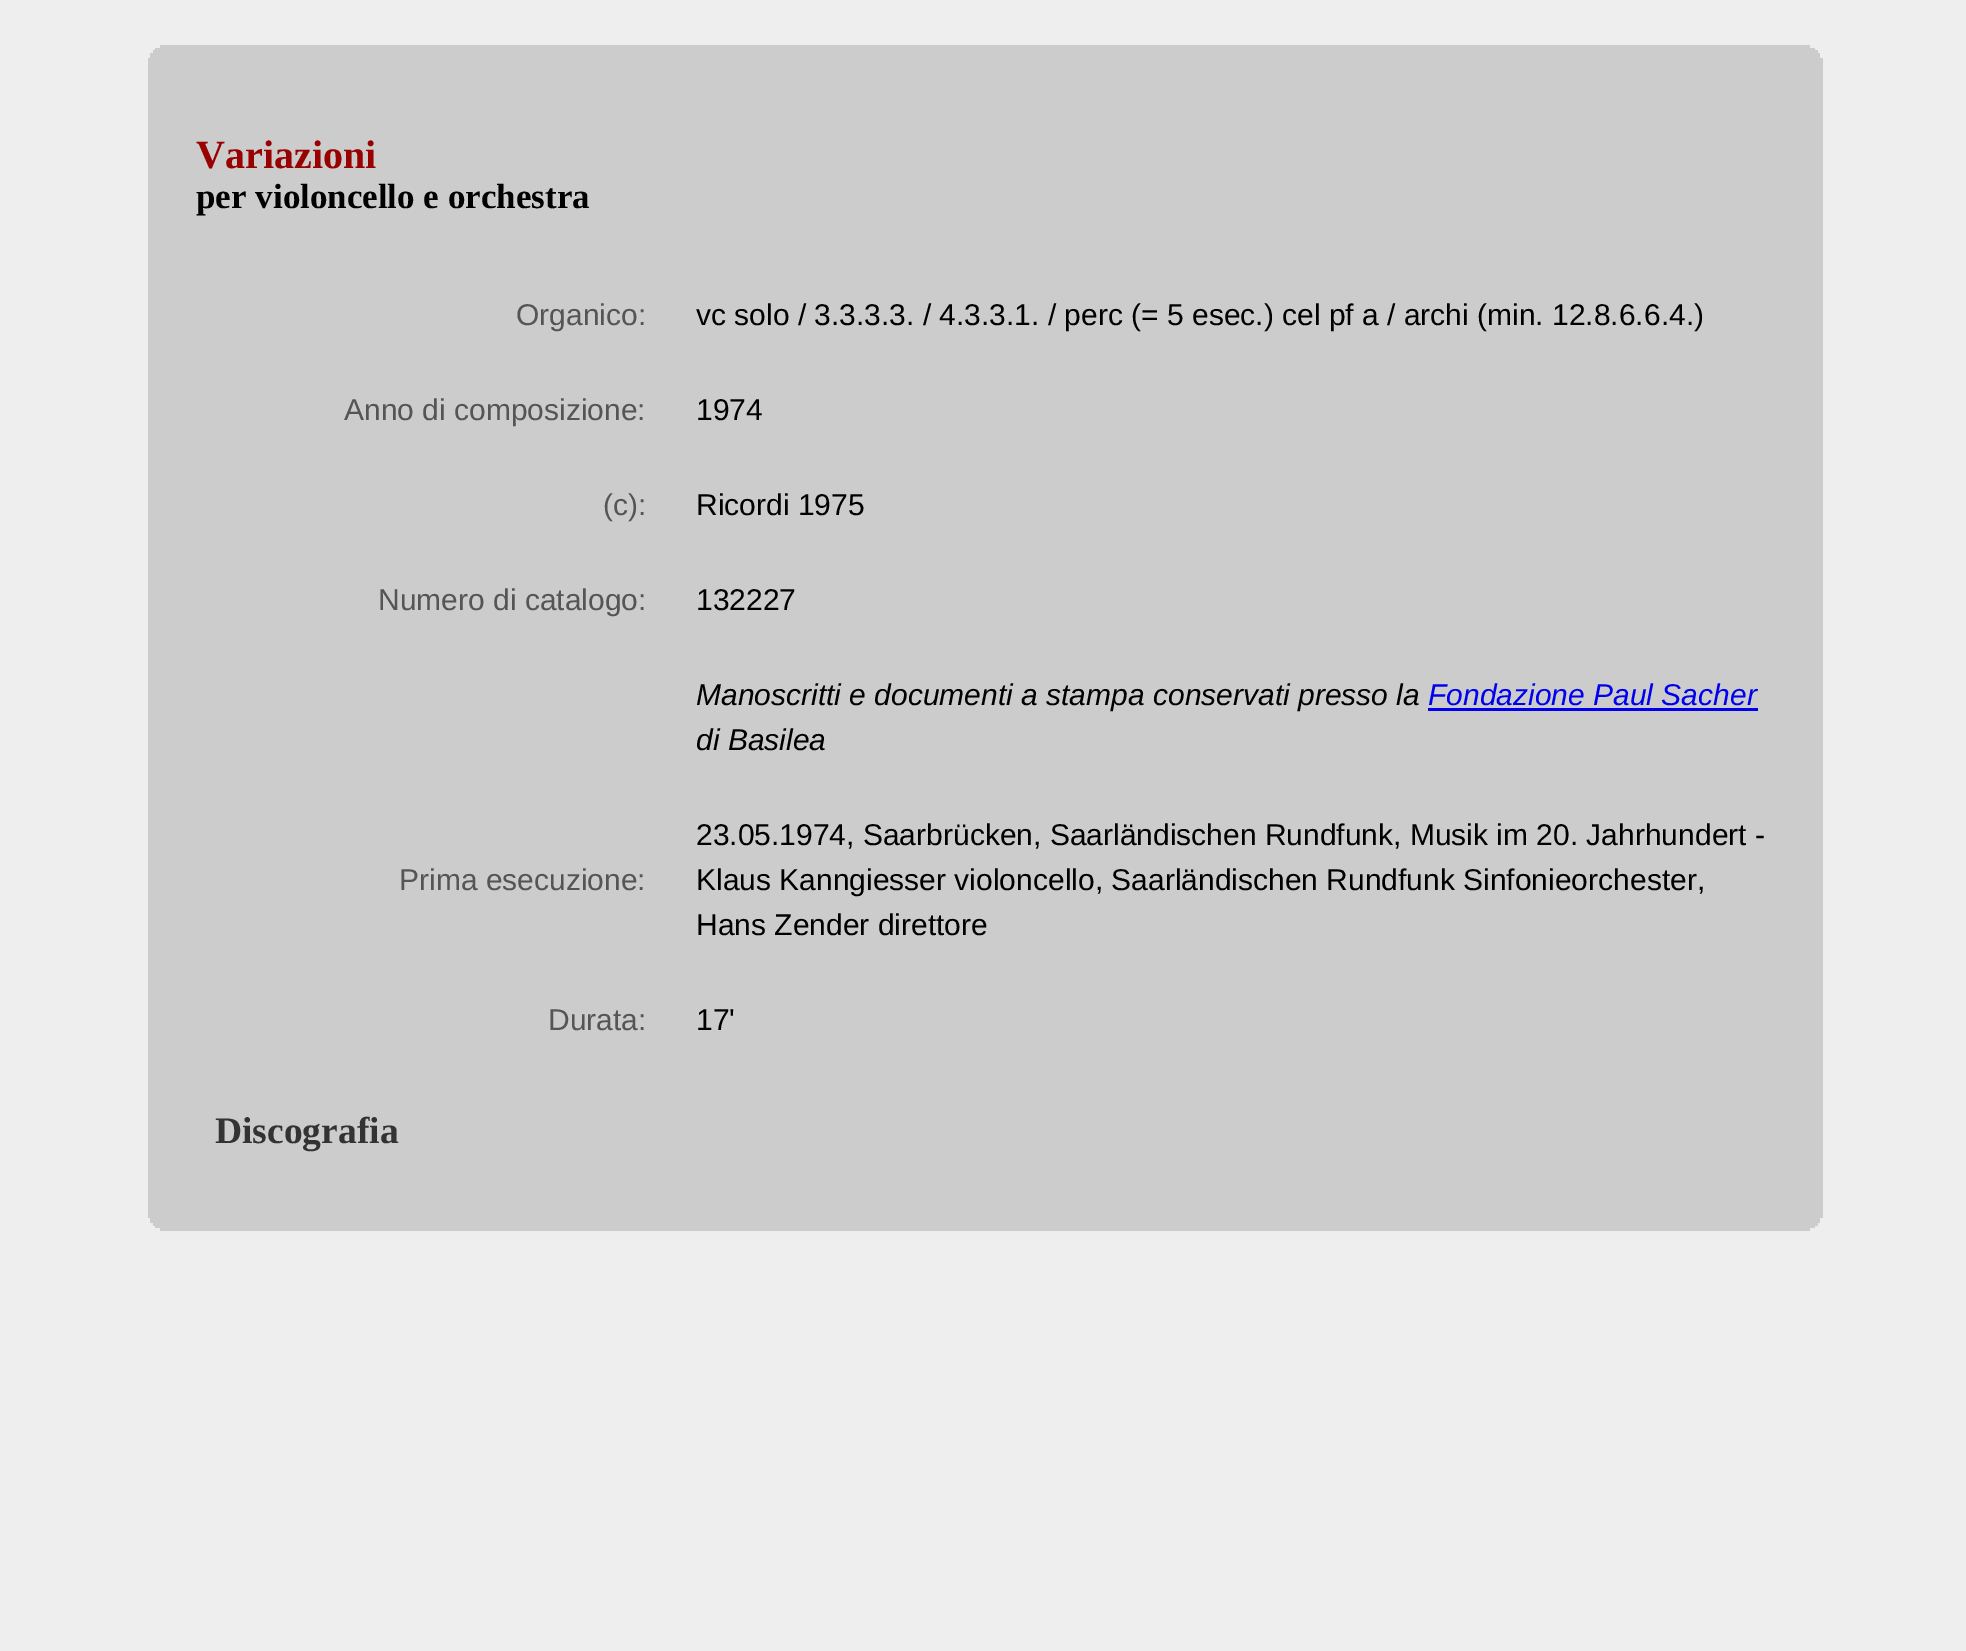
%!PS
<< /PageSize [1966 1651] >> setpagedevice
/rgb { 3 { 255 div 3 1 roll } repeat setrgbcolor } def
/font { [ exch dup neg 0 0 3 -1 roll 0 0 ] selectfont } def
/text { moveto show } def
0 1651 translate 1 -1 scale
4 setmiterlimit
238 238 238 rgb
0 0 1966 1651 rectfill
204 204 204 rgb
160 45 1650 3 rectfill
155 48 1660 2 rectfill
153 50 1665 3 rectfill
150 53 1670 5 rectfill
148 58 1675 1160 rectfill
0 0 238 rgb
1428 708 330 3 rectfill
204 204 204 rgb
150 1218 1670 5 rectfill
153 1223 1665 3 rectfill
155 1226 1660 2 rectfill
160 1228 1650 3 rectfill
/LiberationSerif-Bold 40 font
153 0 0 rgb
(Variazioni) 196 168 text
/LiberationSerif-Bold 35 font
0 0 0 rgb
(per violoncello e orchestra) 196 208 text
/LiberationSans-Regular 30 font
85 85 85 rgb
(Organico:) 516 325 text
0 0 0 rgb
(vc solo / 3.3.3.3. / 4.3.3.1. / perc \(= 5 esec.\) cel pf a / archi \(min. 12.8.6.6.4.\)) 696 325 text
85 85 85 rgb
(Anno di composizione:) 344 420 text
0 0 0 rgb
(1974) 696 420 text
85 85 85 rgb
(\(c\):) 603 515 text
0 0 0 rgb
(Ricordi 1975) 696 515 text
85 85 85 rgb
(Numero di catalogo:) 378 610 text
0 0 0 rgb
(132227) 696 610 text
/LiberationSans-Italic 30 font
(Manoscritti e documenti a stampa conservati presso la) 696 705 text
0 0 238 rgb
(Fondazione Paul Sacher) 1428 705 text
0 0 0 rgb
(di Basilea) 696 750 text
/LiberationSans-Regular 30 font
85 85 85 rgb
(Prima esecuzione:) 399 890 text
0 0 0 rgb
(23.05.1974, Saarbrücken, Saarländischen Rundfunk, Musik im 20. Jahrhundert -) 696 845 text
(Klaus Kanngiesser violoncello, Saarländischen Rundfunk Sinfonieorchester,) 696 890 text
(Hans Zender direttore) 696 935 text
85 85 85 rgb
(Durata:) 548 1030 text
0 0 0 rgb
(17') 696 1030 text
/LiberationSerif-Bold 37.5 font
51 51 51 rgb
(Discografia) 215 1143 text
showpage
